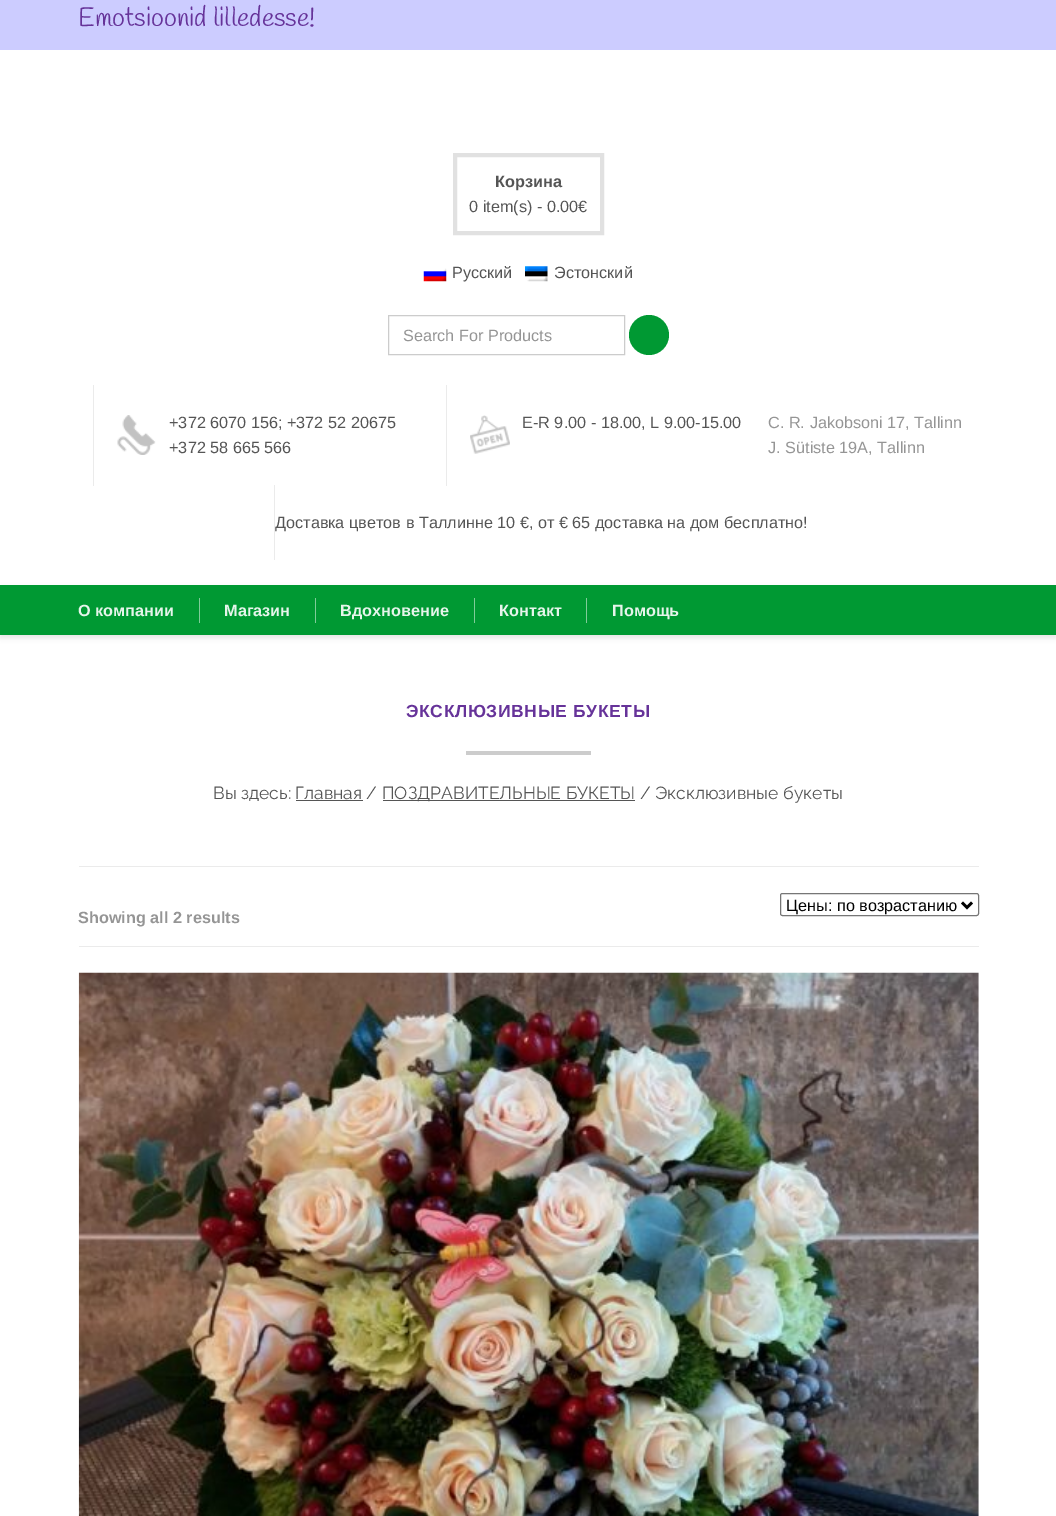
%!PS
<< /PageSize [1056 1516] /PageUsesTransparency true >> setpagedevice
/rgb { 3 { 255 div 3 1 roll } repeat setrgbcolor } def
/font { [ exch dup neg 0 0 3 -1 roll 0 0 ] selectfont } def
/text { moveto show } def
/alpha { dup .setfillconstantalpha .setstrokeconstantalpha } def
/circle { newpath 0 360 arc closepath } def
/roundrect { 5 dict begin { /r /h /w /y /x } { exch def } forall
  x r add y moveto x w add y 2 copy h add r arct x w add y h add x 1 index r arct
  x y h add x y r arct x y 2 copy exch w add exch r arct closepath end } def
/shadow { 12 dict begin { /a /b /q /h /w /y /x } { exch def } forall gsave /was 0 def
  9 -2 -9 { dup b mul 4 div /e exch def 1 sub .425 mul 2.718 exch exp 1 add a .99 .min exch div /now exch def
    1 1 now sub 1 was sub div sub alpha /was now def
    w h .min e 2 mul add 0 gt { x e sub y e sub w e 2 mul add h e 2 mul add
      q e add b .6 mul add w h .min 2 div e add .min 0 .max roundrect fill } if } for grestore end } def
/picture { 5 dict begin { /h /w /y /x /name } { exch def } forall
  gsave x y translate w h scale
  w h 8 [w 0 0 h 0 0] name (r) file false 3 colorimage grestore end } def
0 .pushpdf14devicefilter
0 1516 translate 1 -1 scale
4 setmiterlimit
255 255 255 rgb
0 0 1056 1516 rectfill
204 204 255 rgb
0 0 1056 50 rectfill
225 225 225 rgb
4 setlinewidth
455 155 147 78 rectstroke
(img_01.rgb) 423 268 24 14 picture
(img_02.rgb) 525 266 23 16 picture
204 204 204 rgb
1 setlinewidth
388.5 315.5 236 39 rectstroke
0 153 51 rgb
649 335 20 circle fill
(img_03.rgb) 117 415 39 40 picture
235 235 235 rgb
93 385 1 101 rectfill
(img_04.rgb) 470 415 40 39 picture
446 385 1 101 rectfill
274 485 1 75 rectfill
0 0 0 rgb
0 588 1056 50 0 2.5 0.1 shadow
0 153 51 rgb
0 585 1056 50 rectfill
128 204 153 rgb
199 598 1 25 rectfill
315 598 1 25 rectfill
474 598 1 25 rectfill
586 598 1 25 rectfill
204 204 204 rgb
466 751 125 4 rectfill
85 85 85 rgb
383 800 252 1 rectfill
296 800 67 1 rectfill
235 235 235 rgb
79 866 900 1 rectfill
79 946 900 1 rectfill
118 118 118 rgb
780.5 893.5 198 22 2 roundrect stroke
0 0 0 rgb
2.5 setlinewidth
962 902.5 moveto 5 5 rlineto 5 -5 rlineto stroke
(img_05.rgb) 78 972 901 544 picture
/Handlee-Regular 26.25 font
102 51 153 rgb
(Emotsioonid lilledesse!) 78 26 text
/LiberationSans-Bold 16.25 font
85 85 85 rgb
(Корзина) 495 187 text
/LiberationSans-Regular 16.25 font
(0 item\(s\) - 0.00€) 469 212 text
(Русский) 452 278 text
(Эстонский) 554 278 text
149 149 149 rgb
(Search For Products) 403 341 text
85 85 85 rgb
(+372 6070 156; +372 52 20675) 169 428 text
(+372 58 665 566) 169 453 text
(E-R 9.00 - 18.00, L 9.00-15.00) 522 428 text
149 149 149 rgb
(C. R. Jakobsoni 17, Tallinn) 768 428 text
(J. Sütiste 19A, Tallinn) 768 453 text
85 85 85 rgb
(Доставка цветов в Таллинне 10 €, от € 65 доставка на дом бесплатно!) 275 528 text
/LiberationSans-Bold 16.25 font
230 245 235 rgb
(О компании) 78 616 text
(Магазин) 224 616 text
(Вдохновение) 340 616 text
(Контакт) 499 616 text
(Помощь) 612 616 text
/LiberationSans-Bold 17.5 font
102 51 153 rgb
406 717 moveto 0.6 0 (ЭКСКЛЮЗИВНЫЕ БУКЕТЫ) ashow
/Raleway-Regular 17.5 font
85 85 85 rgb
(Вы здесь: Главная /) 213 799 text
(ПОЗДРАВИТЕЛЬНЫЕ БУКЕТЫ / Эксклюзивные букеты) 382 799 text
/LiberationSans-Regular 16.25 font
0 0 0 rgb
(Цены: по возрастанию) 786 911 text
/LiberationSans-Bold 16.25 font
149 149 149 rgb
(Showing all 2 results) 78 923 text
.poppdf14devicefilter showpage
